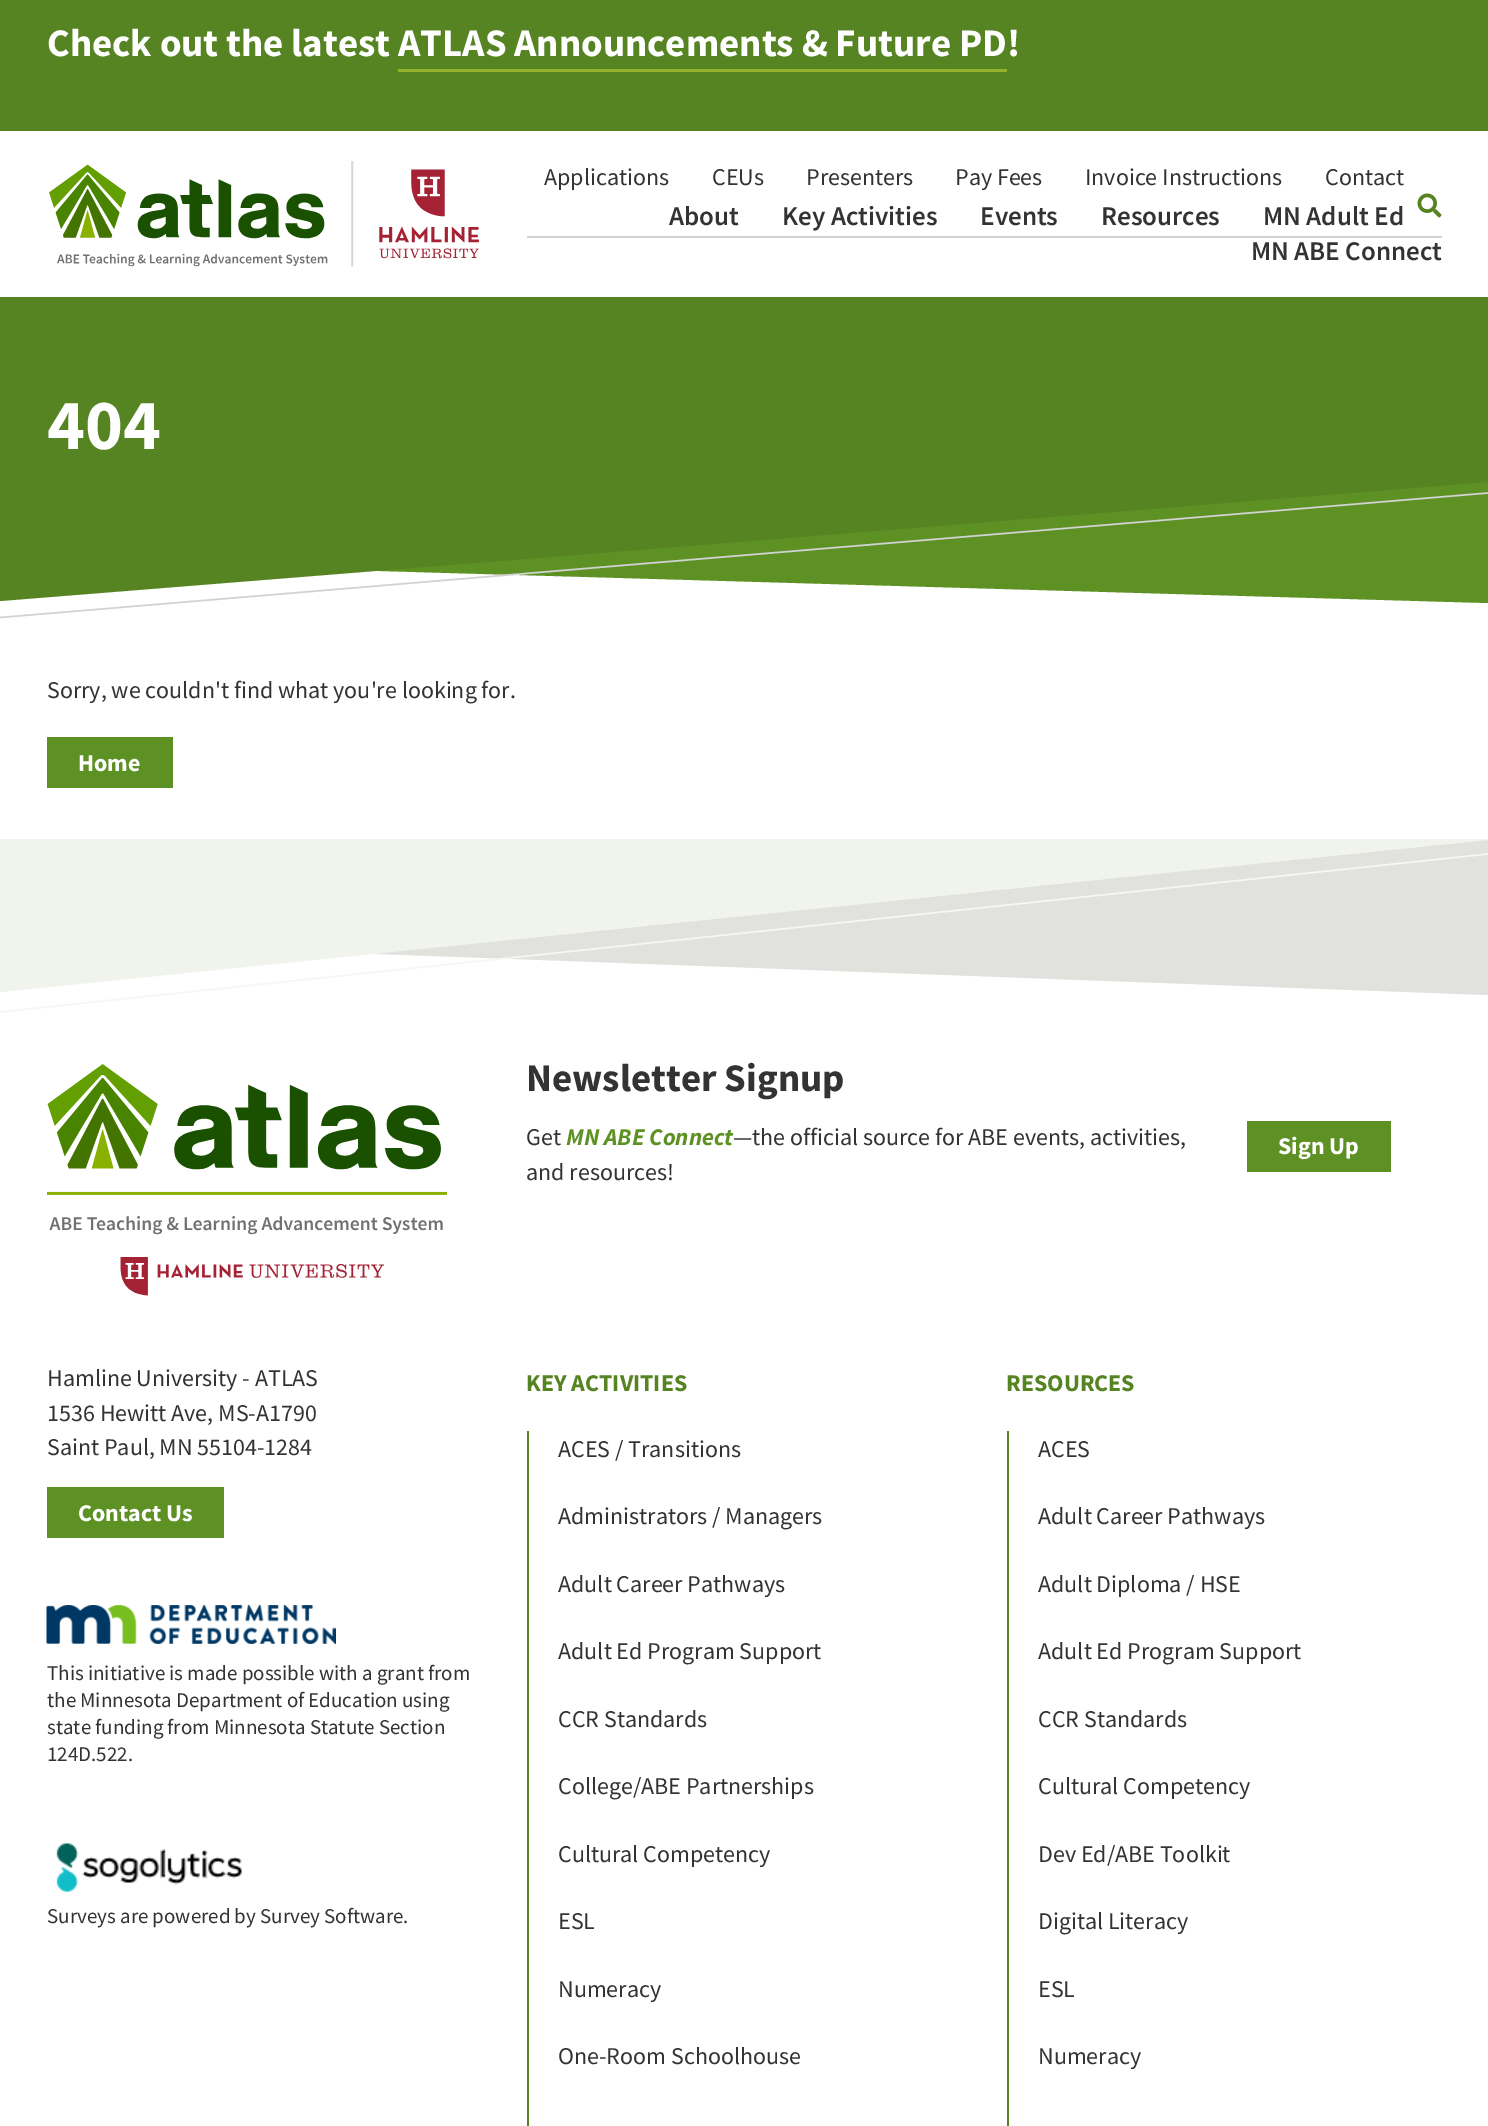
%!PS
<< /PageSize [1488 2126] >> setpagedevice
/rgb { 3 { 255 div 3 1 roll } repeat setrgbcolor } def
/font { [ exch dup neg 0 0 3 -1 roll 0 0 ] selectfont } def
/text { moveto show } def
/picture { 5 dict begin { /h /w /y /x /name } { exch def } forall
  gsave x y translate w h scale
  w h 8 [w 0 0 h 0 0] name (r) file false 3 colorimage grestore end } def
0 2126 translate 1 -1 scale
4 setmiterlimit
255 255 255 rgb
0 0 1488 2126 rectfill
87 132 35 rgb
0 0 1488 131 rectfill
148 178 43 rgb
398 69 609 3 rectfill
(img_01.rgb) 49 161 430 106 picture
210 210 210 rgb
527 236 915 2 rectfill
(img_02.rgb) 1417 193 25 25 picture
87 132 35 rgb
0 297 1488 183 rectfill
94 145 36 rgb
1488 480 moveto -1488 0 rlineto 0 80 rlineto 1488 43 rlineto closepath fill
210 210 210 rgb
1.5 setlinewidth
1488 493 moveto -1488 124.5 rlineto stroke
87 132 35 rgb
1488 482 moveto -1488 119 rlineto 0 -121 rlineto 1488 0 rlineto closepath fill
94 145 36 rgb
47 737 126 51 rectfill
gsave
0 839 1488 175 rectclip
225 226 222 rgb
1488 838 moveto -1488 0 rlineto 0 102 rlineto 1488 55 rlineto closepath fill
grestore
246 246 246 rgb
1488 854 moveto -1488 158 rlineto stroke
gsave
0 839 1488 175 rectclip
241 243 237 rgb
1488 840 moveto -1488 152 rlineto 0 -155 rlineto 1488 0 rlineto closepath fill
grestore
(img_03.rgb) 47 1064 400 232 picture
94 145 36 rgb
1247 1121 144 51 rectfill
47 1487 177 51 rectfill
(img_04.rgb) 46 1605 290 39 picture
(img_05.rgb) 56 1843 186 49 picture
87 132 35 rgb
527 1431 2 695 rectfill
1007 1431 2 695 rectfill
/SourceSansPro-Bold 39 font
255 255 255 rgb
(Check out the latest ATLAS Announcements & Future PD!) 47 56 text
/SourceSansPro-Regular 24 font
51 51 51 rgb
(Applications) 544 185 text
(CEUs) 712 185 text
(Presenters) 806 185 text
(Pay Fees) 955 185 text
(Invoice Instructions) 1085 185 text
(Contact) 1325 185 text
/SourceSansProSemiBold-SemiBold 27 font
(About) 669 225 text
(Key Activities) 782 225 text
(Events) 980 225 text
(Resources) 1101 225 text
(MN Adult Ed) 1263 225 text
(MN ABE Connect) 1251 260 text
/SourceSansPro-Bold 72 font
255 255 255 rgb
(404) 47 449 text
/SourceSansPro-Regular 24 font
51 51 51 rgb
(Sorry, we couldn't find what you're looking for.) 47 698 text
/SourceSansPro-Bold 24 font
255 255 255 rgb
(Home) 78 771 text
/SourceSansPro-Bold 39 font
51 51 51 rgb
(Newsletter Signup) 526 1091 text
/SourceSansPro-Regular 24 font
(Get) 526 1145 text
/SourceSansPro-BoldItalic 24 font
94 145 36 rgb
(MN ABE Connect) 566 1145 text
/SourceSansPro-Regular 24 font
51 51 51 rgb
(—the official source for ABE events, activities,) 733 1145 text
(and resources!) 526 1180 text
/SourceSansPro-Bold 24 font
255 255 255 rgb
(Sign Up) 1278 1154 text
/SourceSansPro-Regular 24 font
51 51 51 rgb
(Hamline University - ATLAS) 47 1386 text
(1536 Hewitt Ave, MS-A1790) 47 1421 text
(Saint Paul, MN 55104-1284) 47 1455 text
/SourceSansPro-Bold 24 font
255 255 255 rgb
(Contact Us) 78 1521 text
/SourceSansPro-Regular 21 font
51 51 51 rgb
(This initiative is made possible with a grant from) 47 1680 text
(the Minnesota Department of Education using) 47 1707 text
(state funding from Minnesota Statute Section) 47 1734 text
(124D.522.) 47 1761 text
(Surveys are powered by Survey Software.) 47 1923 text
/SourceSansPro-Bold 24 font
87 132 35 rgb
(KEY ACTIVITIES) 526 1391 text
/SourceSansPro-Regular 24 font
51 51 51 rgb
(ACES / Transitions) 558 1457 text
(Administrators / Managers) 558 1524 text
(Adult Career Pathways) 558 1592 text
(Adult Ed Program Support) 558 1659 text
(CCR Standards) 558 1727 text
(College/ABE Partnerships) 558 1794 text
(Cultural Competency) 558 1862 text
(ESL) 558 1929 text
(Numeracy) 558 1997 text
(One-Room Schoolhouse) 558 2064 text
/SourceSansPro-Bold 24 font
87 132 35 rgb
(RESOURCES) 1006 1391 text
/SourceSansPro-Regular 24 font
51 51 51 rgb
(ACES) 1038 1457 text
(Adult Career Pathways) 1038 1524 text
(Adult Diploma / HSE) 1038 1592 text
(Adult Ed Program Support) 1038 1659 text
(CCR Standards) 1038 1727 text
(Cultural Competency) 1038 1794 text
(Dev Ed/ABE Toolkit) 1038 1862 text
(Digital Literacy) 1038 1929 text
(ESL) 1038 1997 text
(Numeracy) 1038 2064 text
showpage
